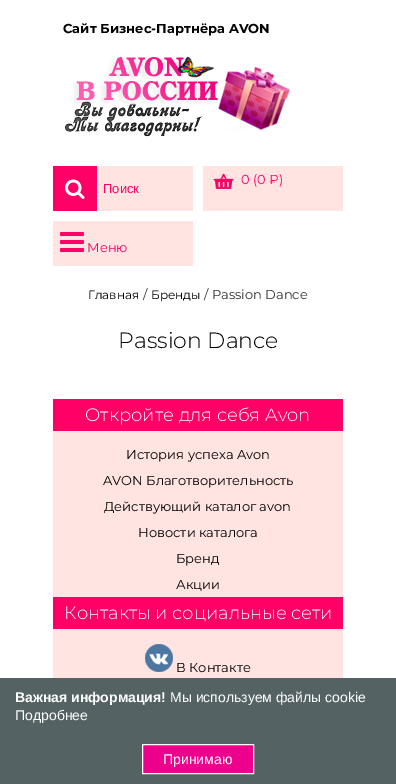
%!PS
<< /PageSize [396 784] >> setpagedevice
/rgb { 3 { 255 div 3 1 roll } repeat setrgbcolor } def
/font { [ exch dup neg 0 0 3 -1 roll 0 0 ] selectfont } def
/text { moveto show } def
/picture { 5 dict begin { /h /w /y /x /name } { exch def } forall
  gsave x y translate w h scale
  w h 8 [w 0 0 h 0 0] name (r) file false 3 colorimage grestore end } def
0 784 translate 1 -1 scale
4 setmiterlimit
255 255 255 rgb
0 0 396 784 rectfill
(img_01.rgb) 65 56 225 81 picture
255 228 225 rgb
203 166 140 45 rectfill
(img_02.rgb) 213 173 21 16 picture
255 0 102 rgb
53 166 44 45 rectfill
(img_03.rgb) 65 179 20 20 picture
255 228 225 rgb
97 166 96 45 rectfill
53 221 140 45 rectfill
(img_04.rgb) 60 232 24 20 picture
53 431 290 247 rectfill
255 0 102 rgb
53 399 290 32 rectfill
53 597 290 32 rectfill
(img_05.rgb) 145 644 28 28 picture
84 98 100 rgb
0 678 396 106 rectfill
237 0 140 rgb
142.5 744.5 moveto 111 0 rlineto 0 29 rlineto -111 0 rlineto closepath gsave fill grestore
255 255 255 rgb
stroke
/Montserrat-Bold 13 font
0 0 0 rgb
(Сайт Бизнес-Партнёра AVON) 63 33 text
/Montserrat-Regular 13 font
255 0 102 rgb
(0 \(0 ₽\)) 241 184 text
/LiberationSans-Regular 13 font
(Поиск) 103 193 text
/Montserrat-Regular 13 font
(Меню) 87 252 text
/Montserrat-Regular 12 font
0 0 0 rgb
(Главная) 88 299 text
/Montserrat-Regular 13 font
51 51 51 rgb
(/) 143 299 text
/Montserrat-Regular 12 font
0 0 0 rgb
(Бренды) 151 299 text
/Montserrat-Regular 13 font
51 51 51 rgb
(/ Passion Dance) 204 299 text
/Montserrat-Light 22 font
0 0 0 rgb
(Passion Dance) 118 348 text
/Montserrat-Light 18 font
255 255 255 rgb
(Откройте для себя Avon) 85 421 text
/Montserrat-Regular 13 font
0 0 0 rgb
(История успеха Avon) 126 459 text
(AVON Благотворительность) 103 485 text
(Действующий каталог avon) 104 511 text
(Новости каталога) 138 537 text
(Бренд) 176 563 text
(Акции) 176 589 text
/Montserrat-Light 18 font
255 255 255 rgb
(Контакты и социальные сети) 64 619 text
/Montserrat-Regular 13 font
0 0 0 rgb
(В Контакте) 176 672 text
/LiberationSans-Bold 14 font
255 255 255 rgb
(Важная информация!) 15 702 text
/LiberationSans-Regular 14 font
(Мы используем файлы cookie) 170 702 text
(Подробнее) 15 720 text
(Принимаю) 163 764 text
showpage
